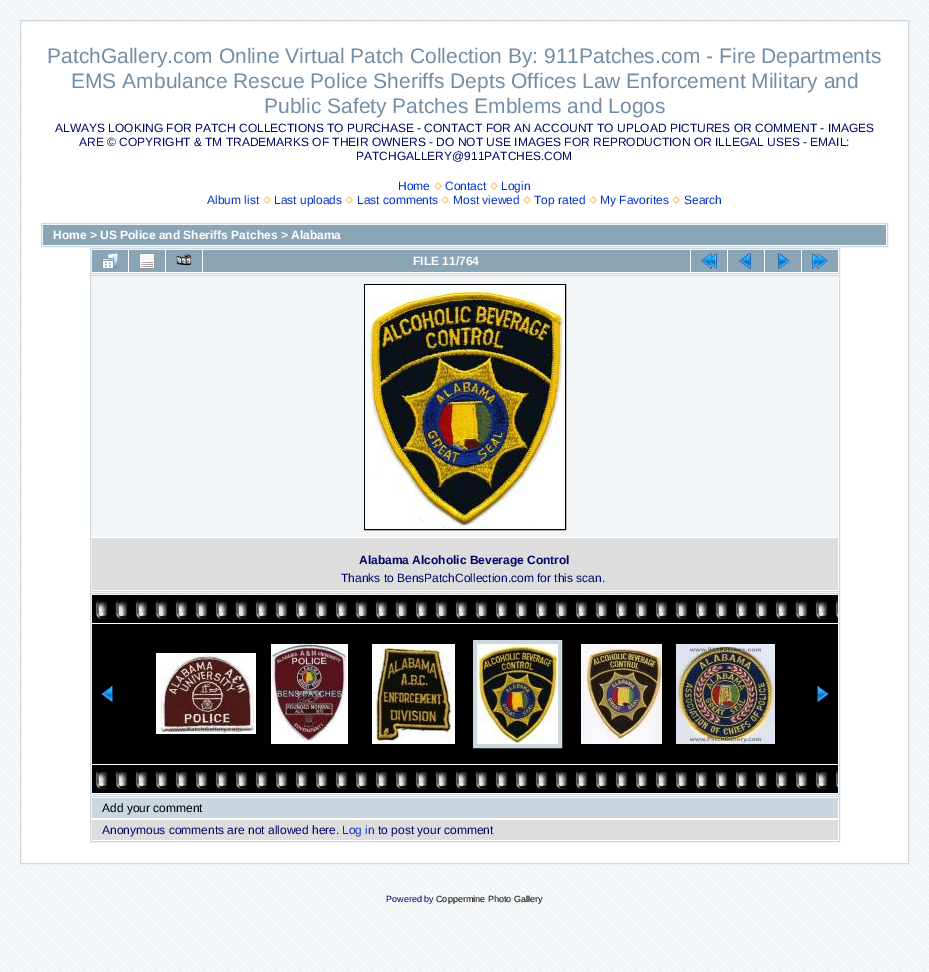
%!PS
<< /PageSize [929 972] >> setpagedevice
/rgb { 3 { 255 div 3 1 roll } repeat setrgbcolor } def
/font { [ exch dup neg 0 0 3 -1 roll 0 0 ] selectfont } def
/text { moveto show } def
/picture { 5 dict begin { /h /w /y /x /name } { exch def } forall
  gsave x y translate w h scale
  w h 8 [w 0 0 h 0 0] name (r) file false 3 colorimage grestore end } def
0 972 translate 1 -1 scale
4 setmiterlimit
242 245 247 rgb
0 0 929 972 rectfill
(img_01.rgb) 0 0 929 972 picture
255 255 255 rgb
20.5 20.5 moveto 888 0 rlineto 0 843 rlineto -888 0 rlineto closepath gsave fill grestore
204 215 224 rgb
stroke
(img_02.rgb) 434 182 8 8 picture
(img_02.rgb) 490 182 8 8 picture
(img_02.rgb) 263 196 8 8 picture
(img_02.rgb) 345 196 8 8 picture
(img_02.rgb) 441 196 8 8 picture
(img_02.rgb) 523 196 8 8 picture
(img_02.rgb) 589 196 8 8 picture
(img_02.rgb) 672 196 8 8 picture
41.5 223.5 846 23 rectstroke
138 165 181 rgb
43 225 843 20 rectfill
204 215 224 rgb
90.5 248.5 749 25 rectstroke
138 165 181 rgb
92 250 36 22 rectfill
(img_03.rgb) 102 253 16 16 picture
129 250 36 22 rectfill
(img_04.rgb) 139 253 16 16 picture
166 250 36 22 rectfill
(img_05.rgb) 176 254 16 12 picture
203 250 487 22 rectfill
691 250 36 22 rectfill
(img_06.rgb) 701 253 16 16 picture
728 250 36 22 rectfill
(img_07.rgb) 739 253 12 16 picture
765 250 36 22 rectfill
(img_08.rgb) 778 253 12 16 picture
802 250 36 22 rectfill
(img_09.rgb) 812 253 16 16 picture
204 215 224 rgb
90.5 275.5 749 316 rectstroke
242 245 247 rgb
92 277 746 260 rectfill
0 0 0 rgb
364.5 284.5 201 245 rectstroke
(img_10.rgb) 365 285 200 244 picture
221 221 221 rgb
92 538 746 52 rectfill
204 215 224 rgb
90.5 593.5 749 201 rectstroke
0 0 0 rgb
92 595 746 28 rectfill
(img_11.rgb) 95 595 743 24 picture
92 624 746 140 rectfill
(img_12.rgb) 101 686 12 16 picture
(img_13.rgb) 156 653 100 81 picture
(img_14.rgb) 271 644 77 100 picture
(img_15.rgb) 372 644 83 100 picture
203 215 222 rgb
4 setlinewidth
475 642 85 104 rectstroke
(img_16.rgb) 477 644 81 100 picture
(img_17.rgb) 581 644 81 100 picture
(img_18.rgb) 676 644 99 100 picture
(img_19.rgb) 817 686 12 16 picture
0 0 0 rgb
92 765 746 28 rectfill
(img_11.rgb) 95 765 743 24 picture
204 215 224 rgb
1 setlinewidth
90.5 796.5 749 45 rectstroke
203 215 222 rgb
92 798 746 20 rectfill
221 221 221 rgb
92 820 746 20 rectfill
/LiberationSans-Regular 21 font
113 142 165 rgb
(PatchGallery.com Online Virtual Patch Collection By: 911Patches.com - Fire Departments) 47 63 text
(EMS Ambulance Rescue Police Sheriffs Depts Offices Law Enforcement Military and) 71 88 text
(Public Safety Patches Emblems and Logos) 264 113 text
/LiberationSans-Regular 12 font
0 6 102 rgb
(ALWAYS LOOKING FOR PATCH COLLECTIONS TO PURCHASE - CONTACT FOR AN ACCOUNT TO UPLOAD PICTURES OR COMMENT - IMAGES) 55 132 text
(ARE © COPYRIGHT & TM TRADEMARKS OF THEIR OWNERS - DO NOT USE IMAGES FOR REPRODUCTION OR ILLEGAL USES - EMAIL:) 79 146 text
(PATCHGALLERY@911PATCHES.COM) 356 160 text
0 51 204 rgb
(Home) 398 190 text
(Contact) 445 190 text
(Login) 501 190 text
(Album list) 207 204 text
(Last uploads) 274 204 text
(Last comments) 357 204 text
(Most viewed) 453 204 text
(Top rated) 534 204 text
(My Favorites) 600 204 text
(Search) 684 204 text
/LiberationSans-Bold 12 font
255 255 255 rgb
(Home > US Police and Sheriffs Patches > Alabama) 53 239 text
(FILE 11/764) 413 265 text
0 6 102 rgb
(Alabama Alcoholic Beverage Control) 359 564 text
/LiberationSans-Regular 12 font
(Thanks to BensPatchCollection.com for this scan.) 341 582 text
0 0 0 rgb
(Add your comment) 102 812 text
0 6 102 rgb
(Anonymous comments are not allowed here.) 102 834 text
0 51 204 rgb
(Log in) 342 834 text
0 6 102 rgb
(to post your comment) 378 834 text
/LiberationSans-Regular 9 font
(Powered by) 386 902 text
0 0 0 rgb
(Coppermine Photo Gallery) 436 902 text
showpage
